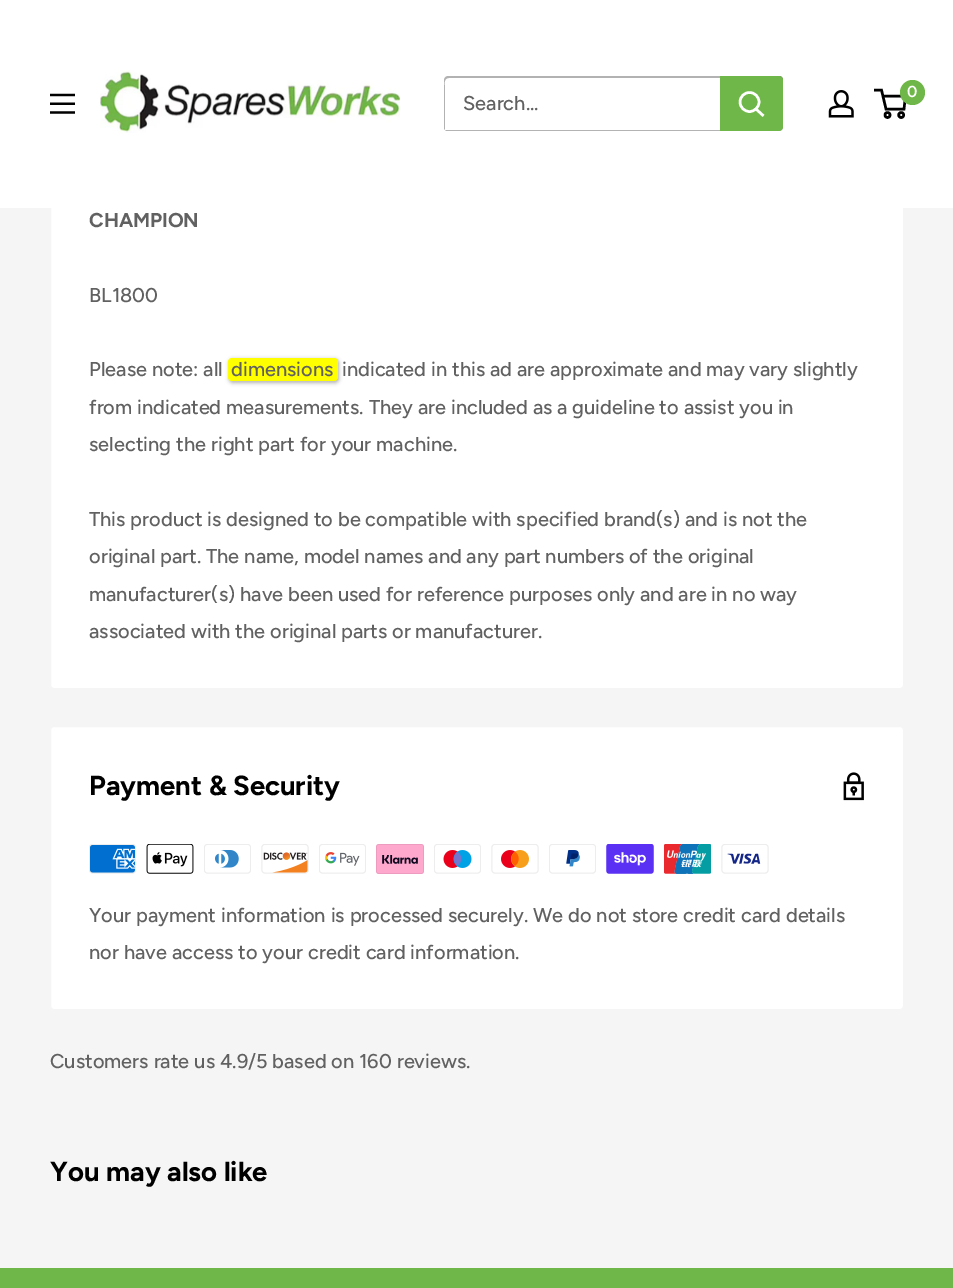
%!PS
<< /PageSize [953 1288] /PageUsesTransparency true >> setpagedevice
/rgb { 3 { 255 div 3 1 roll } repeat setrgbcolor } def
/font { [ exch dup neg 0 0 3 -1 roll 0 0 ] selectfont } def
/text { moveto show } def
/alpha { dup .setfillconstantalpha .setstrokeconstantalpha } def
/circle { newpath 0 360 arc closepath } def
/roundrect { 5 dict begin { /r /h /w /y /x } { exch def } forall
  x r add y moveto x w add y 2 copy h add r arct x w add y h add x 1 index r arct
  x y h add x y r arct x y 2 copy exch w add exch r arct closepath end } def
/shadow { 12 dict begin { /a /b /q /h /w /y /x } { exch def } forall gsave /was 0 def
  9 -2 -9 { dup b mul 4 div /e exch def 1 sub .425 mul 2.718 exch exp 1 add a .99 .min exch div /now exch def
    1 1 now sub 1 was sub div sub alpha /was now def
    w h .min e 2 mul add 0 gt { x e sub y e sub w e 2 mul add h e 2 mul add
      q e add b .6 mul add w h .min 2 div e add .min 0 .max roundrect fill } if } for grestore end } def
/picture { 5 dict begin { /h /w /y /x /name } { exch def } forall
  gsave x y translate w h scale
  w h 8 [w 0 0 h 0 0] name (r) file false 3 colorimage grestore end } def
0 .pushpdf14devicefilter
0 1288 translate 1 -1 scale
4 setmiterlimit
245 245 245 rgb
0 0 953 1288 rectfill
255 255 255 rgb
50.5 -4.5 853 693 3.5 roundrect gsave fill grestore
245 245 245 rgb
stroke
255 255 255 rgb
0 0 953 208 rectfill
(img_01.rgb) 100 70 300 63 picture
(img_02.rgb) 828 90 26 28 picture
0 0 0 rgb
2.5 setlinewidth
887.5 115 2.5 circle stroke
901.2 115 2.5 circle stroke
883 96 moveto 22.5 0 rlineto -1.5 13 rlineto -18 0 rlineto -4.5 -19 rlineto -7.5 0 rlineto stroke
111 183 72 rgb
912.5 92.5 12.5 circle fill
(img_03.rgb) 50 93 25 21 picture
179 179 179 rgb
445 130 moveto 1 1 2 1 3 1 rcurveto 331 0 rlineto 2 0 4 -2 4 -4 rcurveto 0 -47 rlineto 0 -2 -1 -3 -3 -4 rcurveto 1 3 rlineto 0 47 rlineto 0 2 -1 4 -3 4 rcurveto closepath fill
0.3 alpha
0 0 0 rgb
449 78 moveto 331 0 rlineto 3 1 rlineto -1 -2 -2 -3 -4 -3 rcurveto -331 0 rlineto -2 0 -4 2 -4 4 rcurveto 0 47 rlineto 0 1 0 2 1 3 rcurveto 0 -41 rlineto 0 -4 -2 -11 4 -11 rcurveto closepath fill
1 alpha
111 183 72 rgb
720 76 moveto 59 0 rlineto 2 0 4 2 4 4 rcurveto 0 47 rlineto 0 2 -2 4 -4 4 rcurveto -59 0 rlineto closepath fill
255 255 255 rgb
2 setlinecap
762.5 115 moveto -6.5 -6 rlineto stroke
0 setlinecap
749.5 102 9.5 circle stroke
0 0 0 rgb
229 359 110 24 4 2 0.3 shadow
255 255 0 rgb
228 358 110 23 4 roundrect fill
255 255 255 rgb
50.5 726.5 853 283 3.5 roundrect gsave fill grestore
245 245 245 rgb
1 setlinewidth
stroke
(img_04.rgb) 843 772 21 29 picture
(img_05.rgb) 89 844 47 30 picture
(img_06.rgb) 146 844 48 30 picture
(img_07.rgb) 204 844 47 30 picture
(img_08.rgb) 261 844 48 30 picture
(img_09.rgb) 319 844 47 30 picture
(img_10.rgb) 376 844 48 30 picture
(img_11.rgb) 434 844 47 30 picture
(img_12.rgb) 491 844 48 30 picture
(img_13.rgb) 549 844 47 30 picture
(img_14.rgb) 606 844 48 30 picture
(img_15.rgb) 664 844 47 30 picture
(img_16.rgb) 721 844 48 30 picture
111 183 72 rgb
0 1268 953 20 rectfill
/Figtree-SemiBold 16 font
255 255 255 rgb
(0) 907 97 text
/Figtree-Medium 20 font
97 97 97 rgb
(Search...) 463 110 text
/Figtree-Bold 20 font
(CHAMPION) 89 227 text
/Figtree-Medium 20 font
(BL1800) 89 302 text
(Please note: all) 89 376 text
(dimensions) 231 376 text
(indicated in this ad are approximate and may vary slightly) 342 376 text
(from indicated measurements. They are included as a guideline to assist you in) 89 414 text
(selecting the right part for your machine.) 89 451 text
(This product is designed to be compatible with specified brand\(s\) and is not the) 89 526 text
(original part. The name, model names and any part numbers of the original) 89 563 text
(manufacturer\(s\) have been used for reference purposes only and are in no way) 89 601 text
(associated with the original parts or manufacturer.) 89 638 text
/Figtree-Bold 27.5 font
0 0 0 rgb
(Payment & Security) 89 795 text
/Figtree-Medium 20 font
97 97 97 rgb
(Your payment information is processed securely. We do not store credit card details) 89 922 text
(nor have access to your credit card information.) 89 959 text
(Customers rate us 4.9/5 based on 160 reviews.) 50 1068 text
/Figtree-Bold 27.5 font
0 0 0 rgb
(You may also like) 50 1181 text
.poppdf14devicefilter showpage
